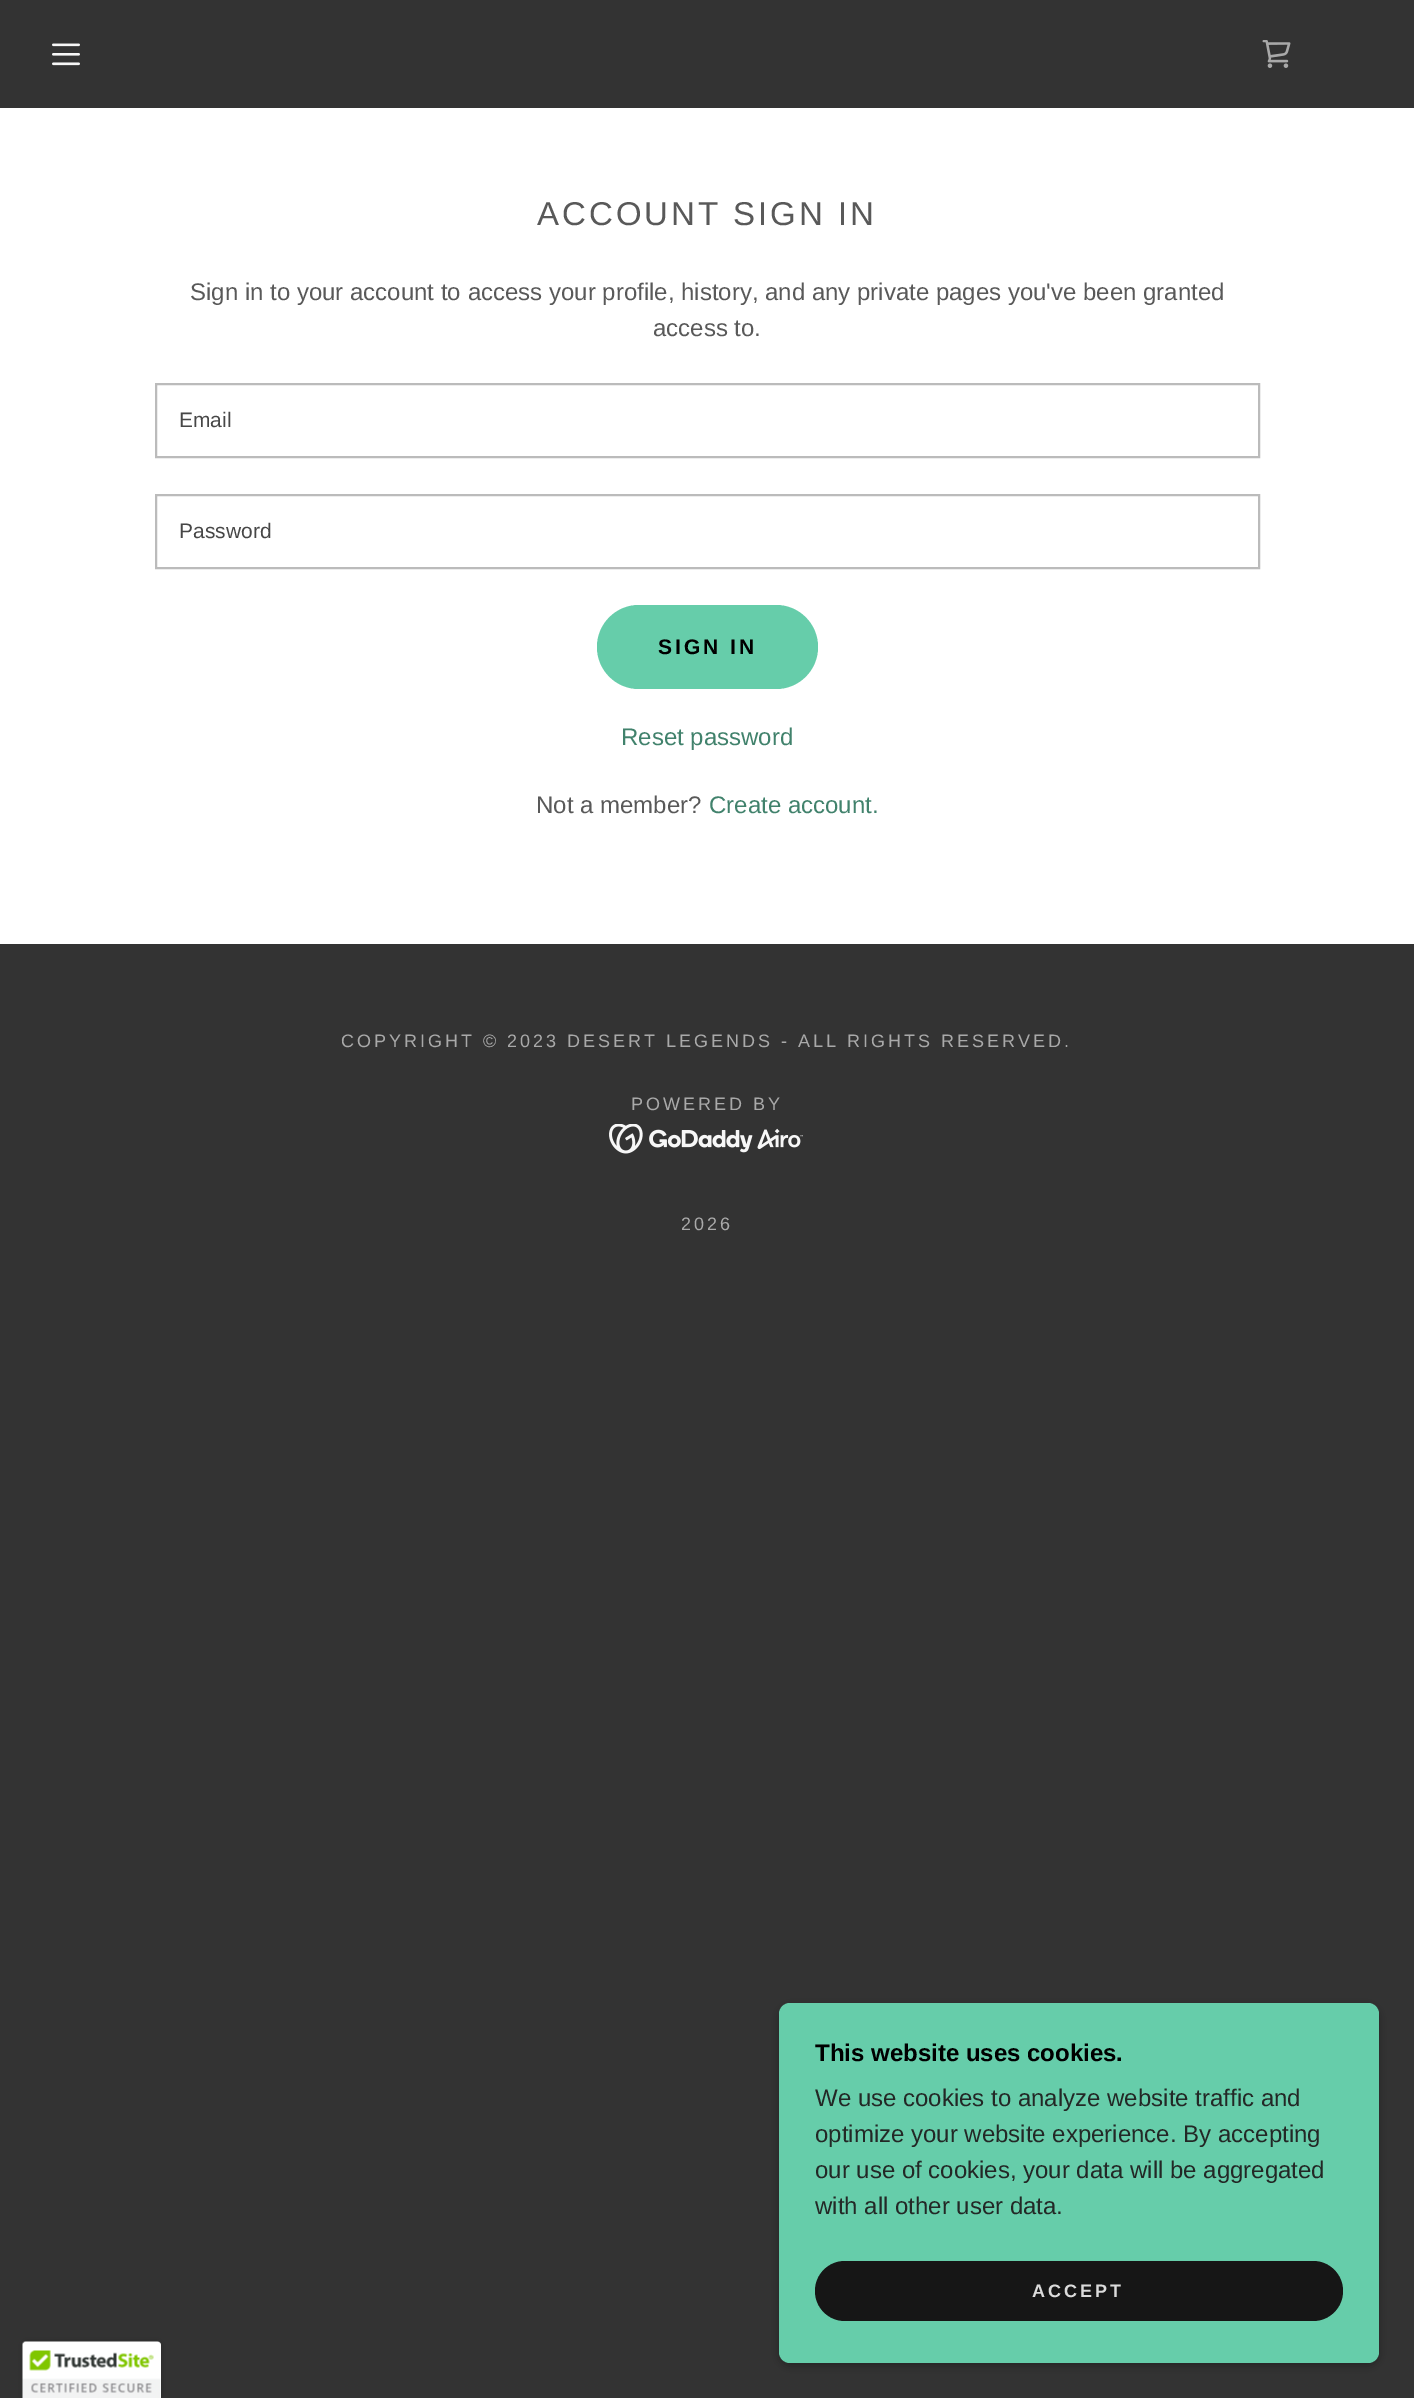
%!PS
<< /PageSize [1414 2398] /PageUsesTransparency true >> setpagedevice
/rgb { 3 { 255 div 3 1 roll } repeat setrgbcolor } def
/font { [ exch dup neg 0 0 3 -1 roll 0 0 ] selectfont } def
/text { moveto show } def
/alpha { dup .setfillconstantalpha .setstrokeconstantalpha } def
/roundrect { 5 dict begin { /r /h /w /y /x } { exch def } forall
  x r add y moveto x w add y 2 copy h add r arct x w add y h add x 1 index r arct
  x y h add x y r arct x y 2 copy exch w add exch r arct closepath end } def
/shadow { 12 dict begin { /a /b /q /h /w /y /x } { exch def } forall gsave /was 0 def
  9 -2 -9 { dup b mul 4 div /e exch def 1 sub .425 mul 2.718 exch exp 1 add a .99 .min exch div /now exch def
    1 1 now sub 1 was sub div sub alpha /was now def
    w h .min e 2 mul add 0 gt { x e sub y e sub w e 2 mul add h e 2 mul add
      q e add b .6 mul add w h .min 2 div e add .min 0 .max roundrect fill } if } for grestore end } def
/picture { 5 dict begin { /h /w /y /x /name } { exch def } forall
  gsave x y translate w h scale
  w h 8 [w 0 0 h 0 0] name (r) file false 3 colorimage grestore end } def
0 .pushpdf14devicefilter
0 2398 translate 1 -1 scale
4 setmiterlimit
51 51 51 rgb
0 0 1414 2398 rectfill
(img_01.rgb) 52 43 28 23 picture
(img_02.rgb) 1262 40 29 28 picture
255 255 255 rgb
0 108 1414 836 rectfill
187 187 187 rgb
2 setlinewidth
156 384 1103 73 rectstroke
156 495 1103 73 rectstroke
102 205 170 rgb
597 605 221 84 42 roundrect fill
(img_03.rgb) 609 1124 194 30 picture
0 0 0 rgb
779 2006 600 360 11 4.5 0.3 shadow
102 205 170 rgb
779 2003 600 360 11 roundrect fill
22 22 22 rgb
815 2261 528 60 30 roundrect fill
0 0 0 rgb
23 2342 138 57 3 4 0.2 shadow
255 255 255 rgb
26 2342 moveto 132 0 rlineto 1.5 0 3 1.5 3 3 rcurveto 0 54 rlineto -138 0 rlineto 0 -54 rlineto 0 -1.5 1.5 -3 3 -3 rcurveto closepath fill
(img_04.rgb) 22 2341 139 57 picture
/LiberationSans-Regular 33 font
89 89 89 rgb
537 225 moveto 3 0 (ACCOUNT SIGN IN) ashow
/LiberationSans-Regular 24 font
(Sign in to your account to access your profile, history, and any private pages you've been granted) 190 300 text
(access to.) 653 336 text
/LiberationSans-Regular 21 font
71 71 71 rgb
(Email) 179 427 text
(Password) 179 538 text
/LiberationSans-Bold 21 font
0 0 0 rgb
658 654 moveto 3 0 (SIGN IN) ashow
/LiberationSans-Regular 24 font
65 130 108 rgb
(Reset password) 621 745 text
89 89 89 rgb
(Not a member?) 536 813 text
65 130 108 rgb
(Create account.) 709 813 text
/LiberationSans-Regular 18 font
169 169 169 rgb
341 1047 moveto 3 0 (COPYRIGHT © 2023 DESERT LEGENDS - ALL RIGHTS RESERVED.) ashow
631 1110 moveto 3 0 (POWERED BY) ashow
681 1230 moveto 3 0 (2026) ashow
/LiberationSans-Bold 24 font
0 0 0 rgb
(This website uses cookies.) 815 2061 text
/LiberationSans-Regular 24 font
35 40 38 rgb
(We use cookies to analyze website traffic and) 815 2106 text
(optimize your website experience. By accepting) 815 2142 text
(our use of cookies, your data will be aggregated) 815 2178 text
(with all other user data.) 815 2214 text
/LiberationSans-Bold 18 font
219 219 219 rgb
1032 2297 moveto 3 0 (ACCEPT) ashow
.poppdf14devicefilter showpage
